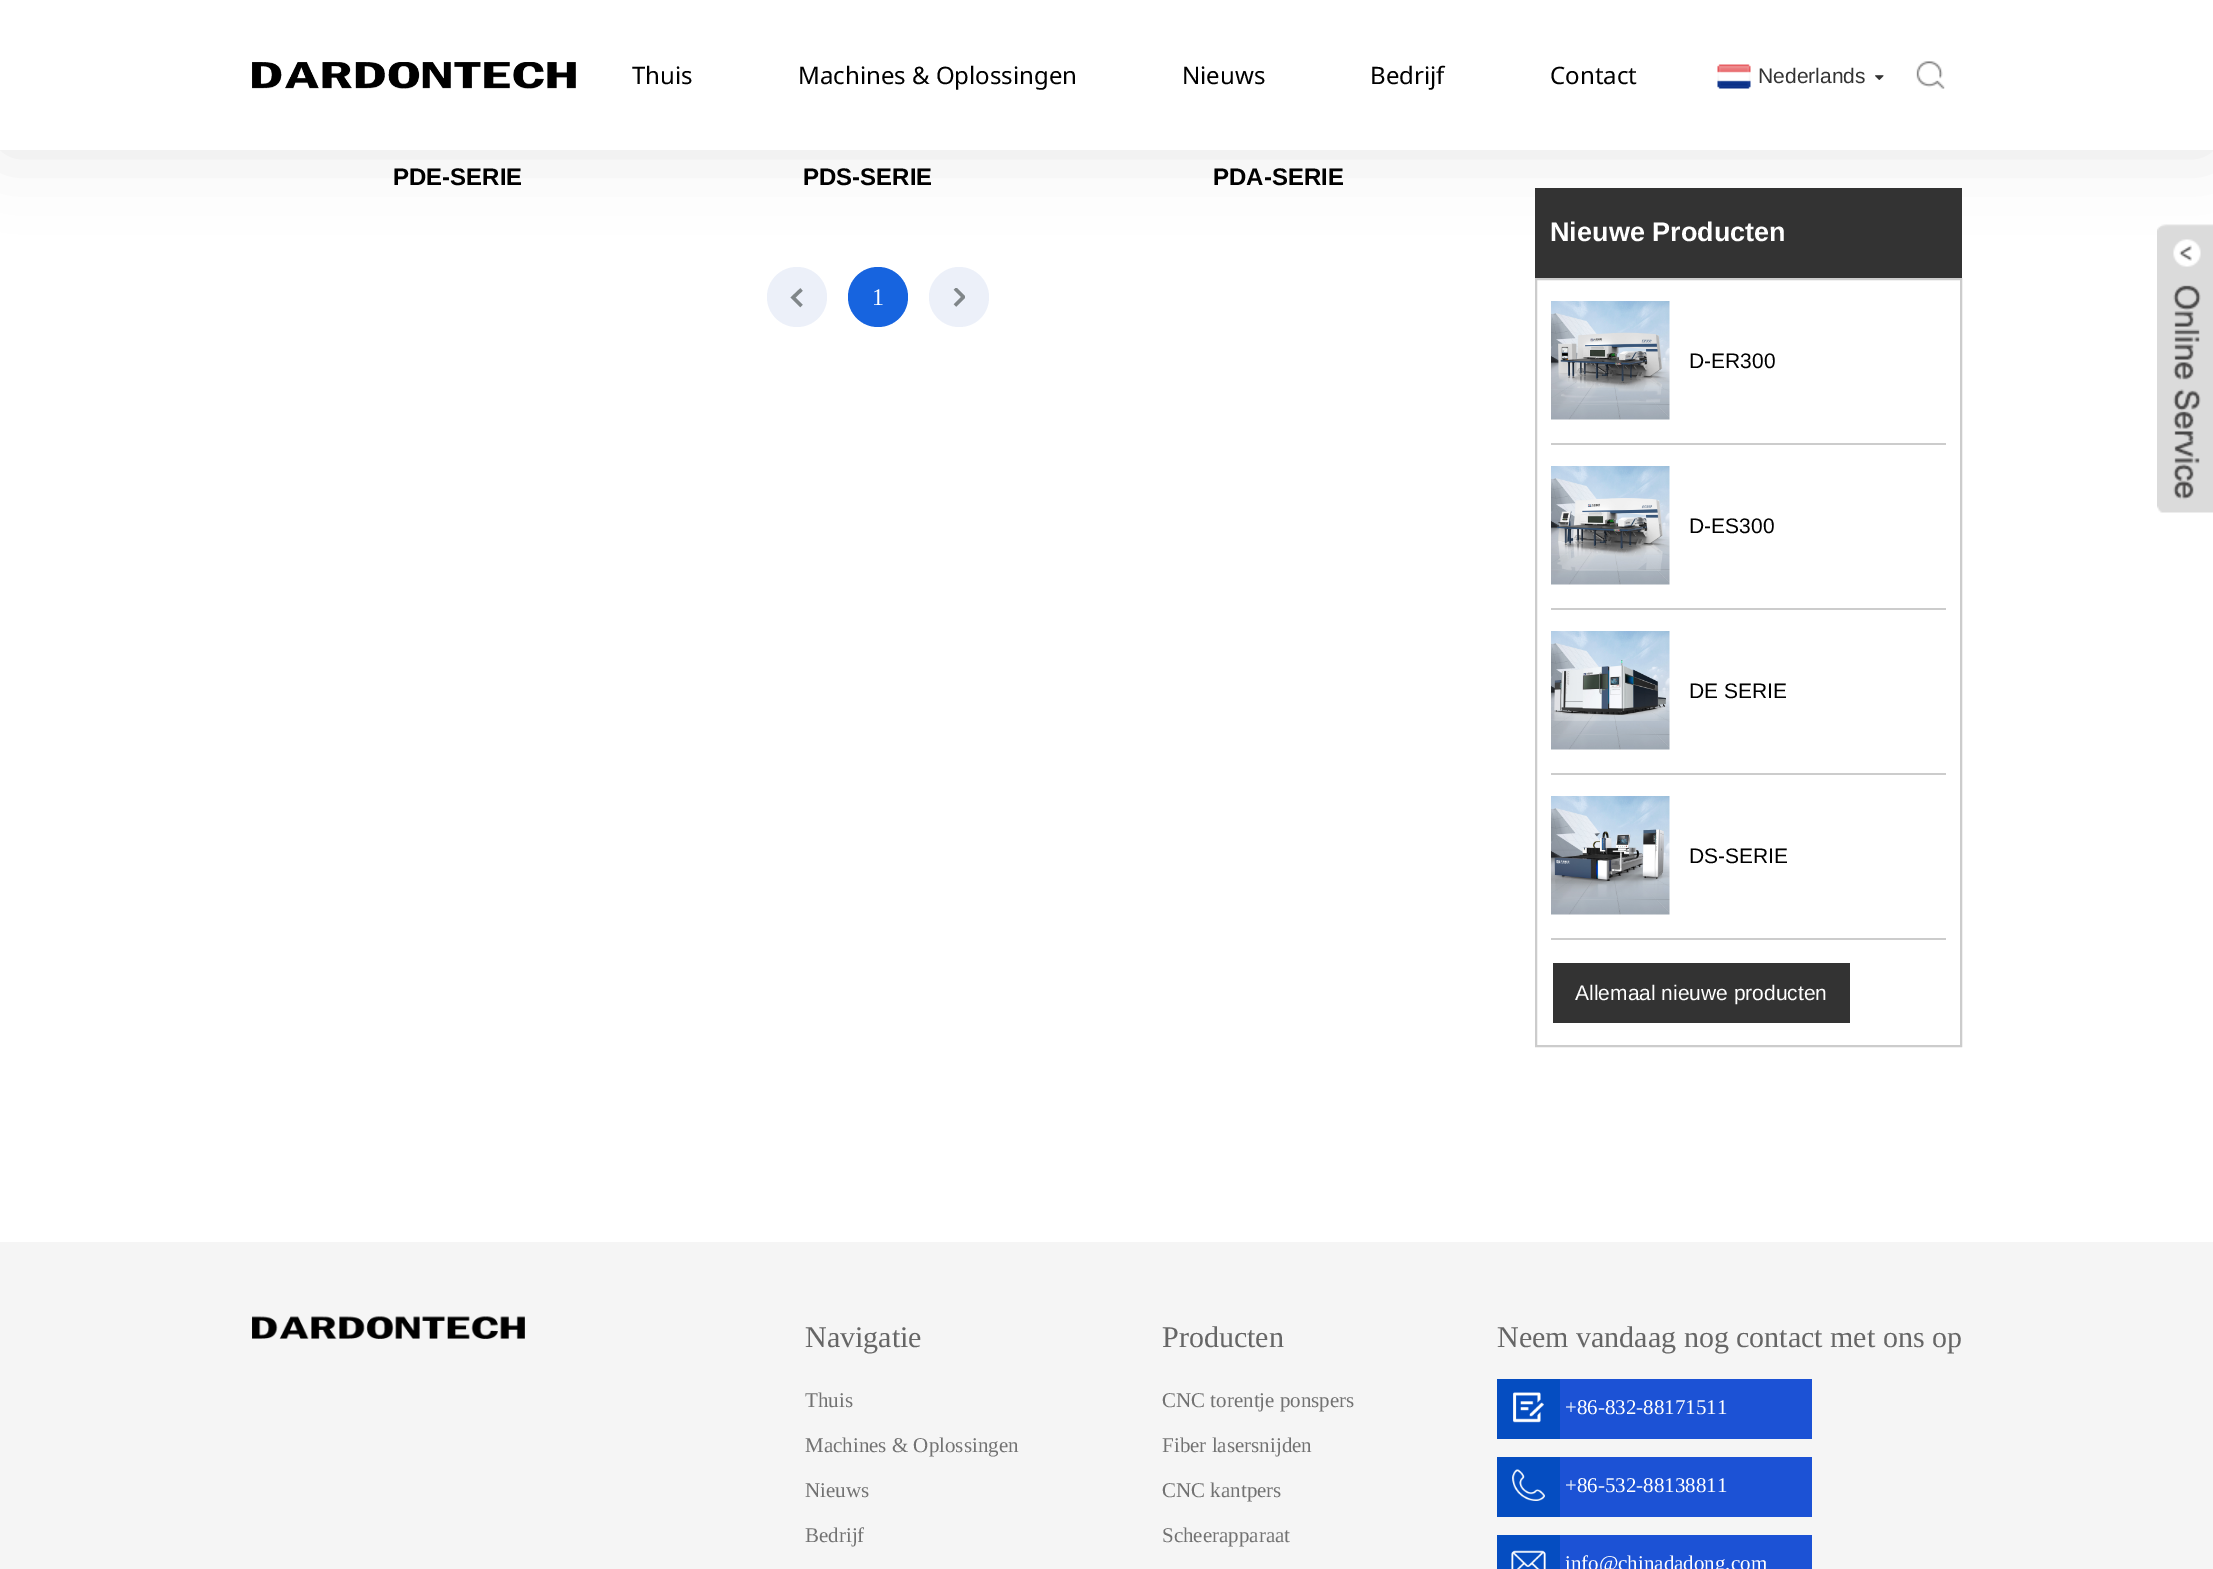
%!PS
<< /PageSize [2213 1569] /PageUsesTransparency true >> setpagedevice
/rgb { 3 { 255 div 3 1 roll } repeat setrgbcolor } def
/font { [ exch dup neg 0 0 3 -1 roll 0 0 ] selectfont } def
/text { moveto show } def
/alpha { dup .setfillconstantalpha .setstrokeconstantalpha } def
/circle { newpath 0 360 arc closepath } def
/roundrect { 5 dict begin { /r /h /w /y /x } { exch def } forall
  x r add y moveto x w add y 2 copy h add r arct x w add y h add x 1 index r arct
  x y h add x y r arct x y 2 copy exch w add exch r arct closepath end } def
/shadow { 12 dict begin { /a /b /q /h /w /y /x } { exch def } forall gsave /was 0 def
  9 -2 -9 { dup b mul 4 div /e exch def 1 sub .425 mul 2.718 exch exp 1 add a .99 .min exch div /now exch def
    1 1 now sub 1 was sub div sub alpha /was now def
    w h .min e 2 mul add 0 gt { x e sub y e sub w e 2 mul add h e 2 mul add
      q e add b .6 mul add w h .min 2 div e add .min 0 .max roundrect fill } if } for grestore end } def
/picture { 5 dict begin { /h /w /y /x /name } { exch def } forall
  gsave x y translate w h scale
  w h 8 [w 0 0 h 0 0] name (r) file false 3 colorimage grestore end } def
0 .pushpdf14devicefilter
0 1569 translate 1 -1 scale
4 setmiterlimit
255 255 255 rgb
0 0 2213 1569 rectfill
51 51 51 rgb
1535 188 427 90 rectfill
0 0 0 rgb
0 0 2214 150 0 37.5 0.1 shadow
255 255 255 rgb
0 0 2213 150 rectfill
(img_01.rgb) 252 62 324 27 picture
(img_02.rgb) 1717 64 34 25 picture
(img_03.rgb) 1875 75 9 5 picture
(img_04.rgb) 1916 61 29 28 picture
236 240 249 rgb
797 297 30 circle fill
128 134 137 rgb
3.4 setlinewidth
801.5 306 moveto -8.5 -8.5 rlineto 8.5 -8 rlineto stroke
23 100 223 rgb
878 297 30 circle fill
236 240 249 rgb
959 327 moveto -16 0 -30 -13 -30 -30 rcurveto 0 -16 14 -30 30 -30 rcurveto 17 0 30 14 30 30 rcurveto 0 17 -13 30 -30 30 rcurveto closepath fill
gsave
953 288 12 20 rectclip
128 134 137 rgb
955 288.5 moveto 8.5 8.5 rlineto -8.5 8.5 rlineto stroke
grestore
204 204 204 rgb
2 setlinewidth
1536 279 425 767 rectstroke
1551 443 395 2 rectfill
(img_05.rgb) 1551 301 119 119 picture
1551 608 395 2 rectfill
(img_06.rgb) 1551 466 119 119 picture
1551 773 395 2 rectfill
(img_07.rgb) 1551 631 119 119 picture
1551 938 395 2 rectfill
(img_08.rgb) 1551 796 119 119 picture
51 51 51 rgb
1553 963 297 60 rectfill
(img_09.rgb) 2157 224 56 289 picture
245 245 245 rgb
0 1242 2213 327 rectfill
(img_10.rgb) 252 1316 273 23 picture
28 82 213 rgb
1560 1379 252 60 rectfill
5 77 193 rgb
1497 1379 63 60 rectfill
(img_11.rgb) 1513 1392 31 31 picture
28 82 213 rgb
1560 1457 252 60 rectfill
5 77 193 rgb
1497 1457 63 60 rectfill
(img_12.rgb) 1512 1469 33 32 picture
28 82 213 rgb
1560 1535 252 34 rectfill
5 77 193 rgb
1497 1535 63 34 rectfill
(img_13.rgb) 1511 1550 35 19 picture
/NotoSans-Regular 24 font
0 0 0 rgb
(Thuis) 632 84 text
(Machines & Oplossingen) 798 84 text
(Nieuws) 1182 84 text
(Bedrijf) 1370 84 text
(Contact) 1550 84 text
/LiberationSans-Regular 21 font
51 51 51 rgb
(Nederlands) 1758 83 text
/LiberationSans-Bold 24 font
0 0 0 rgb
(PDE-SERIE) 393 185 text
(PDS-SERIE) 803 185 text
(PDA-SERIE) 1213 185 text
/LiberationSerif-Regular 24 font
255 255 255 rgb
(1) 872 305 text
/LiberationSans-Bold 27 font
(Nieuwe Producten) 1550 241 text
/LiberationSans-Regular 21 font
0 0 0 rgb
(D-ER300) 1689 368 text
(D-ES300) 1689 533 text
(DE SERIE) 1689 698 text
(DS-SERIE) 1689 863 text
255 255 255 rgb
(Allemaal nieuwe producten) 1575 1000 text
/LiberationSerif-Regular 30 font
102 102 102 rgb
(Navigatie) 805 1347 text
/LiberationSerif-Regular 21 font
114 114 114 rgb
(Thuis) 805 1407 text
(Machines & Oplossingen) 805 1452 text
(Nieuws) 805 1497 text
(Bedrijf) 805 1542 text
/LiberationSerif-Regular 30 font
102 102 102 rgb
(Producten) 1162 1347 text
/LiberationSerif-Regular 21 font
114 114 114 rgb
(CNC torentje ponspers) 1162 1407 text
(Fiber lasersnijden) 1162 1452 text
(CNC kantpers) 1162 1497 text
(Scheerapparaat) 1162 1542 text
/LiberationSerif-Regular 30 font
102 102 102 rgb
(Neem vandaag nog contact met ons op) 1497 1347 text
/LiberationSerif-Regular 21 font
255 255 255 rgb
(+86-832-88171511) 1565 1414 text
(+86-532-88138811) 1565 1492 text
(info@chinadadong.com) 1565 1570 text
.poppdf14devicefilter showpage
